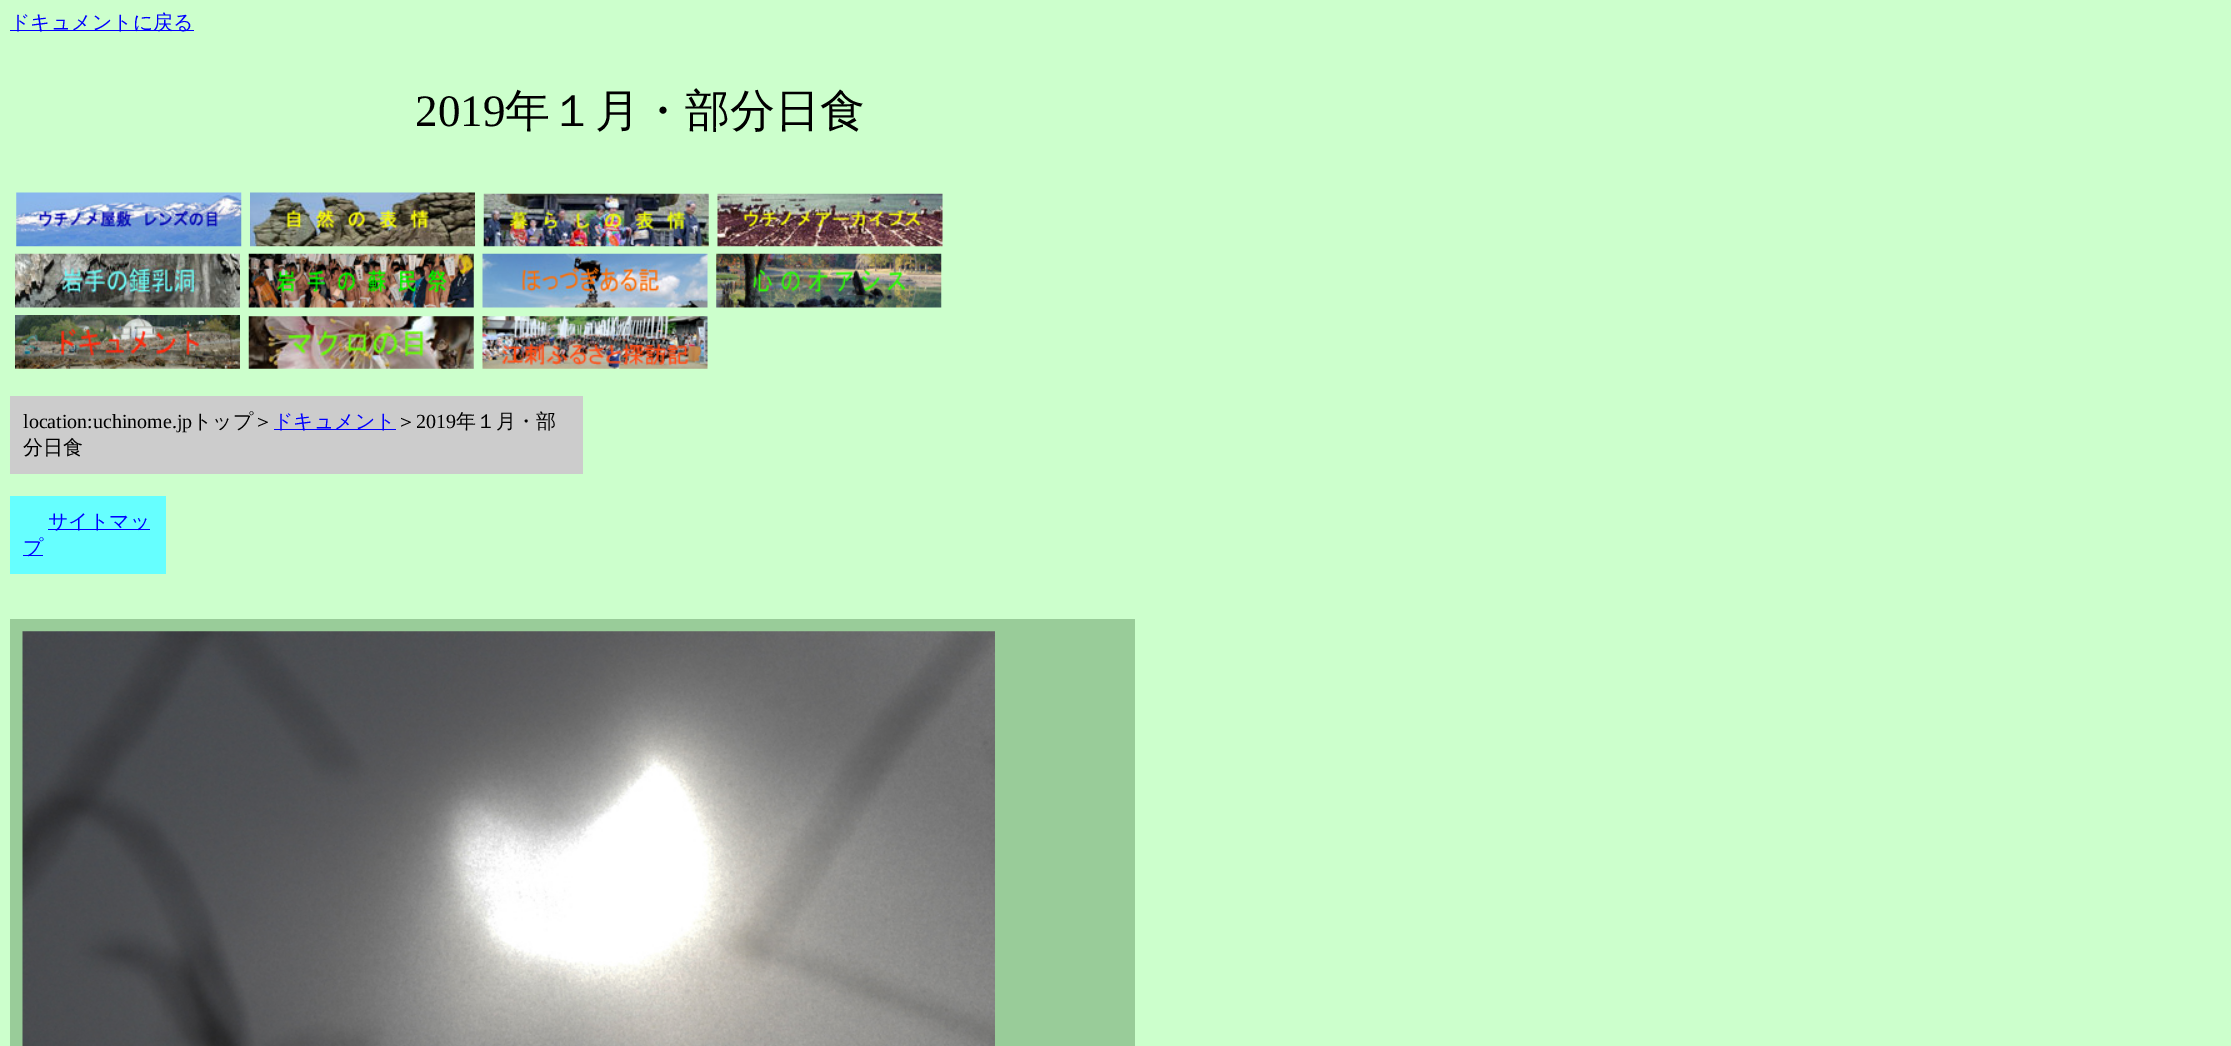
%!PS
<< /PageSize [2231 1046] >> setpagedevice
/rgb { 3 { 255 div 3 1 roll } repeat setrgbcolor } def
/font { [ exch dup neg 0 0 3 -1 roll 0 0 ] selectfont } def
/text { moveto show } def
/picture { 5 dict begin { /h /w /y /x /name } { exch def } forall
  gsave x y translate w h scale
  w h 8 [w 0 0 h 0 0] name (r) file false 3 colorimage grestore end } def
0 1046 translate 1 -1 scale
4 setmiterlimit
204 255 204 rgb
0 0 2231 1046 rectfill
0 0 255 rgb
10 30 184 1 rectfill
(img_01.rgb) 16 192 226 55 picture
(img_02.rgb) 250 192 225 55 picture
(img_03.rgb) 483 193 226 54 picture
(img_04.rgb) 717 193 226 54 picture
(img_05.rgb) 15 253 225 55 picture
(img_06.rgb) 248 253 226 55 picture
(img_07.rgb) 482 253 226 55 picture
(img_08.rgb) 716 253 226 55 picture
(img_09.rgb) 15 315 225 54 picture
(img_10.rgb) 248 316 226 53 picture
(img_11.rgb) 482 316 226 53 picture
204 204 204 rgb
10 396 573 78 rectfill
0 0 255 rgb
274 429 122 1 rectfill
102 255 255 rgb
10 496 156 78 rectfill
0 0 255 rgb
48 529 102 1 rectfill
23 555 20 1 rectfill
153 204 153 rgb
10 619 1125 427 rectfill
(img_12.rgb) 22 631 973 415 picture
/WenQuanYiZenHei-Medium 20 font
0 0 255 rgb
(ドキュメントに戻る) 10 29 text
/LiberationSerif-Regular 45 font
0 0 0 rgb
(2019) 415 126 text
/WenQuanYiZenHei-Medium 45 font
(年１月・部分日食) 505 126 text
/LiberationSerif-Regular 20 font
(location:uchinome.jp) 23 428 text
/WenQuanYiZenHei-Medium 20 font
(トップ＞) 192 428 text
0 0 255 rgb
(ドキュメント) 273 428 text
0 0 0 rgb
(＞) 396 428 text
/LiberationSerif-Regular 20 font
(2019) 416 428 text
/WenQuanYiZenHei-Medium 20 font
(年１月・部) 456 428 text
(分日食) 23 454 text
0 0 255 rgb
(サイトマッ) 48 528 text
(プ) 23 554 text
showpage
